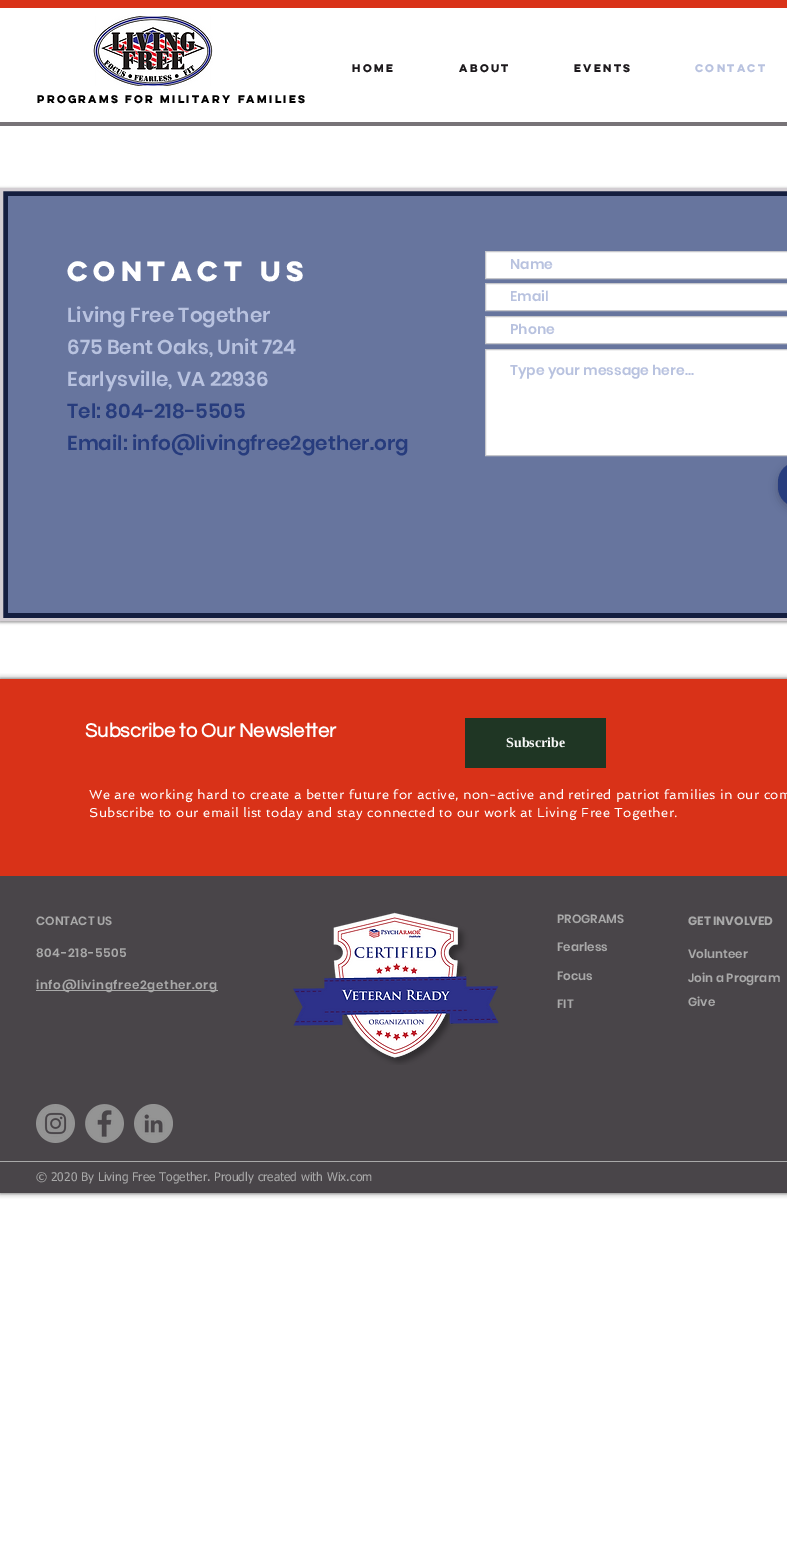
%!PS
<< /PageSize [787 1542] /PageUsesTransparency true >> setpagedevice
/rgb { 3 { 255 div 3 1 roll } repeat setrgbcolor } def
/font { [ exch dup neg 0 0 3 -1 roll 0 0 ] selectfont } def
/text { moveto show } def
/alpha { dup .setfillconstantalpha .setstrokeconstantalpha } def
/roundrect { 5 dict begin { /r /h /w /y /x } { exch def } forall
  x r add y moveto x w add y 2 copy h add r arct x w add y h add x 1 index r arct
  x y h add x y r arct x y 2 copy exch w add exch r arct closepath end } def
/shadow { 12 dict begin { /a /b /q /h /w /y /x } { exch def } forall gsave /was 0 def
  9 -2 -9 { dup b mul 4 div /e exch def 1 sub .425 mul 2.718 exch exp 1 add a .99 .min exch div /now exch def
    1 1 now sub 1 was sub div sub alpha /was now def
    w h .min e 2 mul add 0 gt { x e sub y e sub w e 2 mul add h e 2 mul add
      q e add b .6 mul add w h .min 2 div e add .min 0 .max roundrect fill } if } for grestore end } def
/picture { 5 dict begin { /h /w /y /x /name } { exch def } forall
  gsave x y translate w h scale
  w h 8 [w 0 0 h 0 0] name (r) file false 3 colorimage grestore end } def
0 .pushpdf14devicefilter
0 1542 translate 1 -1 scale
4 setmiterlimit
255 255 255 rgb
0 0 787 1542 rectfill
217 50 24 rgb
0 0 787 8 rectfill
(img_01.rgb) 92 16 121 70 picture
119 115 119 rgb
0 122 787 4 rectfill
0 0 0 rgb
0 189 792 433 0 1.5 0.5 shadow
20 30 63 rgb
1.5 189.5 moveto 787 0 rlineto 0 430 rlineto -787 0 rlineto closepath gsave fill grestore
210 205 210 rgb
3 setlinewidth
stroke
103 117 158 rgb
8 196 779 417 rectfill
255 255 255 rgb
485.5 251.5 moveto 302 0 rlineto 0 27 rlineto -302 0 rlineto closepath gsave fill grestore
197 198 203 rgb
1 setlinewidth
stroke
255 255 255 rgb
485.5 283.5 moveto 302 0 rlineto 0 27 rlineto -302 0 rlineto closepath gsave fill grestore
197 198 203 rgb
stroke
255 255 255 rgb
485.5 316.5 moveto 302 0 rlineto 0 27 rlineto -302 0 rlineto closepath gsave fill grestore
197 198 203 rgb
stroke
255 255 255 rgb
485.5 349.5 moveto 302 0 rlineto 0 106 rlineto -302 0 rlineto closepath gsave fill grestore
197 198 203 rgb
stroke
0 0 0 rgb
778 465 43 45 20 4.5 0.23 shadow
39 60 125 rgb
778 462 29 45 20 roundrect fill
0 0 0 rgb
0 679 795 514 0 2.5 0.7 shadow
73 69 73 rgb
0 876 787 317 rectfill
217 50 24 rgb
0 679 787 197 rectfill
31 54 36 rgb
465 718 141 50 rectfill
169 169 169 rgb
36 990 182 1 rectfill
(img_02.rgb) 293 912 206 153 picture
(img_03.rgb) 36 1104 39 39 picture
(img_04.rgb) 85 1104 39 39 picture
(img_05.rgb) 134 1104 39 39 picture
0 1161 787 1 rectfill
/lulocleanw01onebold-Bold 10 font
28 25 28 rgb
(HOME) 352 72 text
(ABOUT) 459 72 text
(EVENTS) 574 72 text
184 194 223 rgb
(CONTACT) 695 72 text
0 0 0 rgb
(Programs for Military Families) 37 103 text
/lulocleanw01onebold-Bold 25 font
255 255 255 rgb
(CONTACT US) 67 281 text
/Poppins-SemiBold 14 font
184 194 223 rgb
(Name) 510 269 text
(Email) 510 301 text
(Phone) 510 334 text
(Type your message here...) 510 375 text
/Poppins-SemiBold 20 font
(Living Free Together) 67 322 text
(675 Bent Oaks, Unit 724) 67 354 text
(Earlysville, VA 22936) 67 386 text
39 60 125 rgb
(Tel: 804-218-5505) 67 418 text
(Email: info@livingfree2gether.org) 67 450 text
/Questrial-Bold 20 font
255 255 255 rgb
(Subscribe to Our Newsletter) 85 737 text
/LiberationSerif-Bold 14 font
249 249 249 rgb
(Subscribe) 506 747 text
/Spinnaker-Regular 13 font
255 255 255 rgb
89 799 moveto 0.39 0 (We are working hard to create a better future for active, non-active and retired patriot families in our com) ashow
89 817 moveto 0.39 0 (Subscribe to our email list today and stay connected to our work at Living Free Together.) ashow
/Poppins-SemiBold 12 font
169 169 169 rgb
(CONTACT US) 36 925 text
36 957 moveto 0.6 0 (804-218-5505) ashow
36 989 moveto 0.6 0 (info@livingfree2gether.org) ashow
(PROGRAMS) 557 923 text
(Fearless) 557 951 text
(Focus) 557 980 text
(FIT) 557 1008 text
/Poppins-Bold 12 font
(GET INVOLVED) 688 925 text
/Poppins-SemiBold 12 font
(Volunteer) 688 958 text
(Join a Program) 688 982 text
(Give) 688 1006 text
/tahoma-Regular 12 font
(© 2020 By Living Free Together. Proudly created with Wix.com) 36 1181 text
.poppdf14devicefilter showpage
